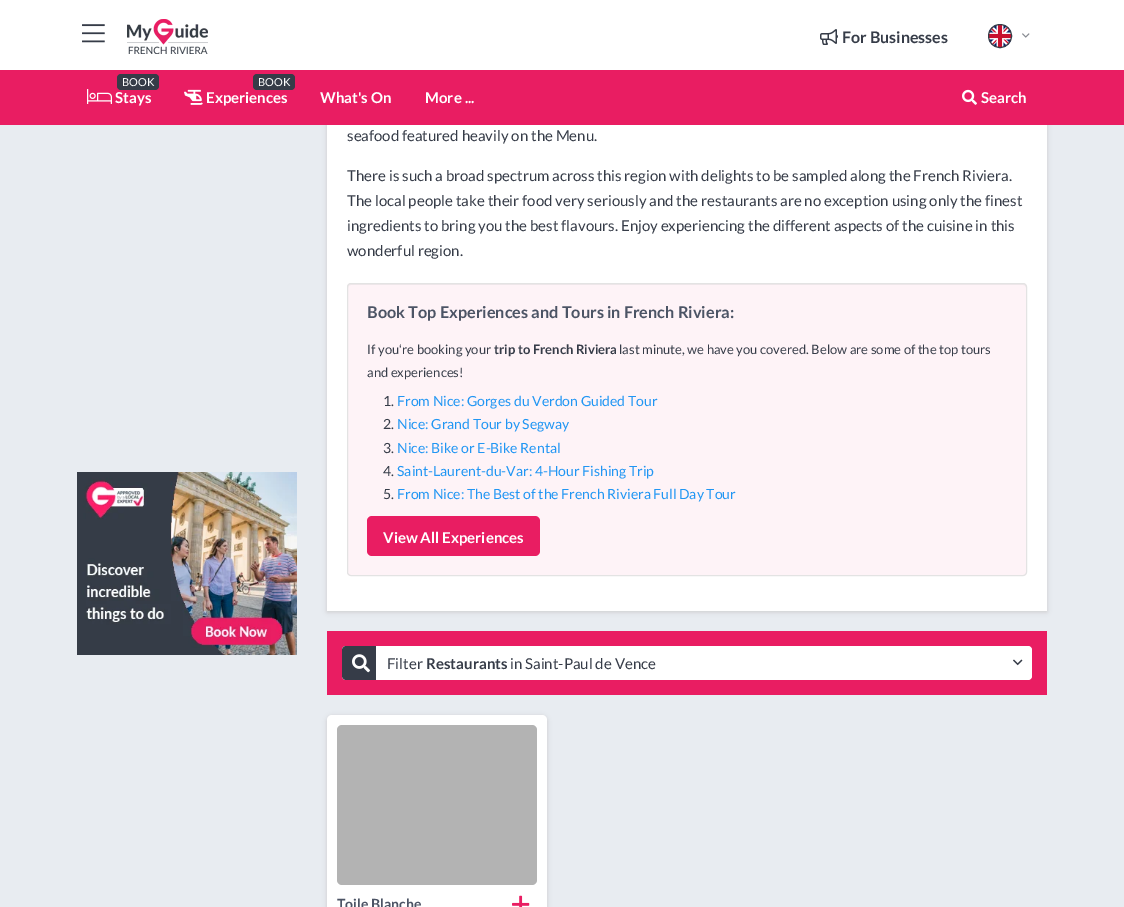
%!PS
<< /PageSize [1124 907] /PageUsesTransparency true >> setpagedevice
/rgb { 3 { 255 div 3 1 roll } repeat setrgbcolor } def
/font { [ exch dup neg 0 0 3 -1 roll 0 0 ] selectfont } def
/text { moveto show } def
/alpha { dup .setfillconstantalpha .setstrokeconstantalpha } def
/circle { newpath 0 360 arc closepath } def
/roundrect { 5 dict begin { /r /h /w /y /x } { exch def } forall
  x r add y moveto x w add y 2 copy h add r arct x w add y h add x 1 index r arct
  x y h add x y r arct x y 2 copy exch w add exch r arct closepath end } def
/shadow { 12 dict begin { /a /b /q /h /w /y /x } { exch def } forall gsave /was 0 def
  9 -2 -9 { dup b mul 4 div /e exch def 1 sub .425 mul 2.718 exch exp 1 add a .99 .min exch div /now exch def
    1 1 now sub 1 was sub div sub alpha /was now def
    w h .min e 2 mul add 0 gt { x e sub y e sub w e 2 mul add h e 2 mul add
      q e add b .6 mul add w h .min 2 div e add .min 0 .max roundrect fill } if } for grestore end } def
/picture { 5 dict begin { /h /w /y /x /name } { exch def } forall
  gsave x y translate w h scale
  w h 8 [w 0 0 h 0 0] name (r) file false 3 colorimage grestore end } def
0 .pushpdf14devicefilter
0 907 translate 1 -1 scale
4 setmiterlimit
232 236 241 rgb
0 0 1124 907 rectfill
204 204 204 rgb
327 -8 720 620 0 2.5 1 shadow
255 255 255 rgb
0 0 1124 70 rectfill
(img_01.rgb) 82 24 23 19 picture
(img_02.rgb) 127 19 81 35 picture
(img_03.rgb) 820 29 18 16 picture
(img_04.rgb) 989 25 22 22 picture
54 60 72 rgb
1000 36 11.5 circle stroke
(img_05.rgb) 1022 33 8 5 picture
233 29 98 rgb
0 70 1124 55 rectfill
54 60 72 rgb
117 74 42 16 4 roundrect fill
(img_06.rgb) 87 89 25 15 picture
253 74 42 16 4 roundrect fill
(img_07.rgb) 184 89 19 16 picture
(img_08.rgb) 962 89 15 16 picture
(img_09.rgb) 77 472 220 183 picture
255 255 255 rgb
327 125 720 486 rectfill
254 243 247 rgb
347 283 680 293 4 roundrect fill
241 231 235 rgb
351 285 moveto 672 0 rlineto 2 0 3 1 3 3 rcurveto 0 -1 rlineto 0 -2 -1 -3 -3 -3 rcurveto -672 0 rlineto -2 0 -3 1 -3 3 rcurveto 0 1 rlineto 0 -2 1 -3 3 -3 rcurveto closepath fill
227 227 227 rgb
347.5 283.5 679 292 3.5 roundrect stroke
233 29 98 rgb
367 516 173 40 5 roundrect fill
327 631 720 64 rectfill
255 255 255 rgb
342 646 690 34 4 roundrect fill
54 60 72 rgb
346 646 moveto 30 0 rlineto 0 34 rlineto -30 0 rlineto -2 0 -4 -2 -4 -4 rcurveto 0 -26 rlineto 0 -2 2 -4 4 -4 rcurveto closepath fill
(img_10.rgb) 352 654 18 19 picture
(img_11.rgb) 1013 659 10 7 picture
204 204 204 rgb
327 716 220 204 5 2.5 1 shadow
255 255 255 rgb
327 715 220 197 5 roundrect fill
179 179 179 rgb
337 725 200 160 5 roundrect fill
(img_12.rgb) 512 895 18 12 picture
/Lato-Bold 16 font
54 60 72 rgb
(For Businesses) 842 43 text
/Lato-Regular 11 font
255 255 255 rgb
(BOOK) 122 86 text
/Lato-Bold 15 font
(Stays) 115 103 text
/Lato-Regular 11 font
(BOOK) 258 86 text
/Lato-Bold 15 font
(Experiences) 206 103 text
(What's On) 320 103 text
(More ...) 425 103 text
(Search) 981 103 text
/Lato-Regular 15 font
54 60 72 rgb
(seafood featured heavily on the Menu.) 347 141 text
(There is such a broad spectrum across this region with delights to be sampled along the French Riviera.) 347 181 text
(The local people take their food very seriously and the restaurants are no exception using only the finest) 347 206 text
(ingredients to bring you the best flavours. Enjoy experiencing the different aspects of the cuisine in this) 347 231 text
(wonderful region.) 347 256 text
/Lato-Bold 16.3 font
76 84 101 rgb
(Book Top Experiences and Tours in French Riviera:) 367 318 text
/Lato-Regular 13 font
54 60 72 rgb
(If you) 367 354 text
/LiberationSans-Regular 13 font
(ʻ) 399 354 text
/Lato-Regular 13 font
(re booking your) 402 354 text
/Lato-Bold 13 font
(trip to French Riviera) 494 354 text
/Lato-Regular 13 font
(last minute, we have you covered. Below are some of the top tours) 619 354 text
(and experiences!) 367 377 text
/Lato-Regular 14 font
(1.) 383 406 text
33 150 243 rgb
(From Nice: Gorges du Verdon Guided Tour) 397 406 text
54 60 72 rgb
(2.) 383 429 text
33 150 243 rgb
(Nice: Grand Tour by Segway) 397 429 text
54 60 72 rgb
(3.) 383 453 text
33 150 243 rgb
(Nice: Bike or E-Bike Rental) 397 453 text
54 60 72 rgb
(4.) 383 476 text
33 150 243 rgb
(Saint-Laurent-du-Var: 4-Hour Fishing Trip) 397 476 text
54 60 72 rgb
(5.) 383 499 text
33 150 243 rgb
(From Nice: The Best of the French Riviera Full Day Tour) 397 499 text
/Lato-Bold 15 font
255 255 255 rgb
(View All Experiences) 383 543 text
/Lato-Regular 15 font
54 60 72 rgb
(Filter) 387 669 text
/Lato-Bold 15 font
(Restaurants) 426 669 text
/Lato-Regular 15 font
(in Saint-Paul de Vence) 510 669 text
/Lato-Bold 14 font
76 84 101 rgb
(Toile Blanche) 337 909 text
.poppdf14devicefilter showpage
